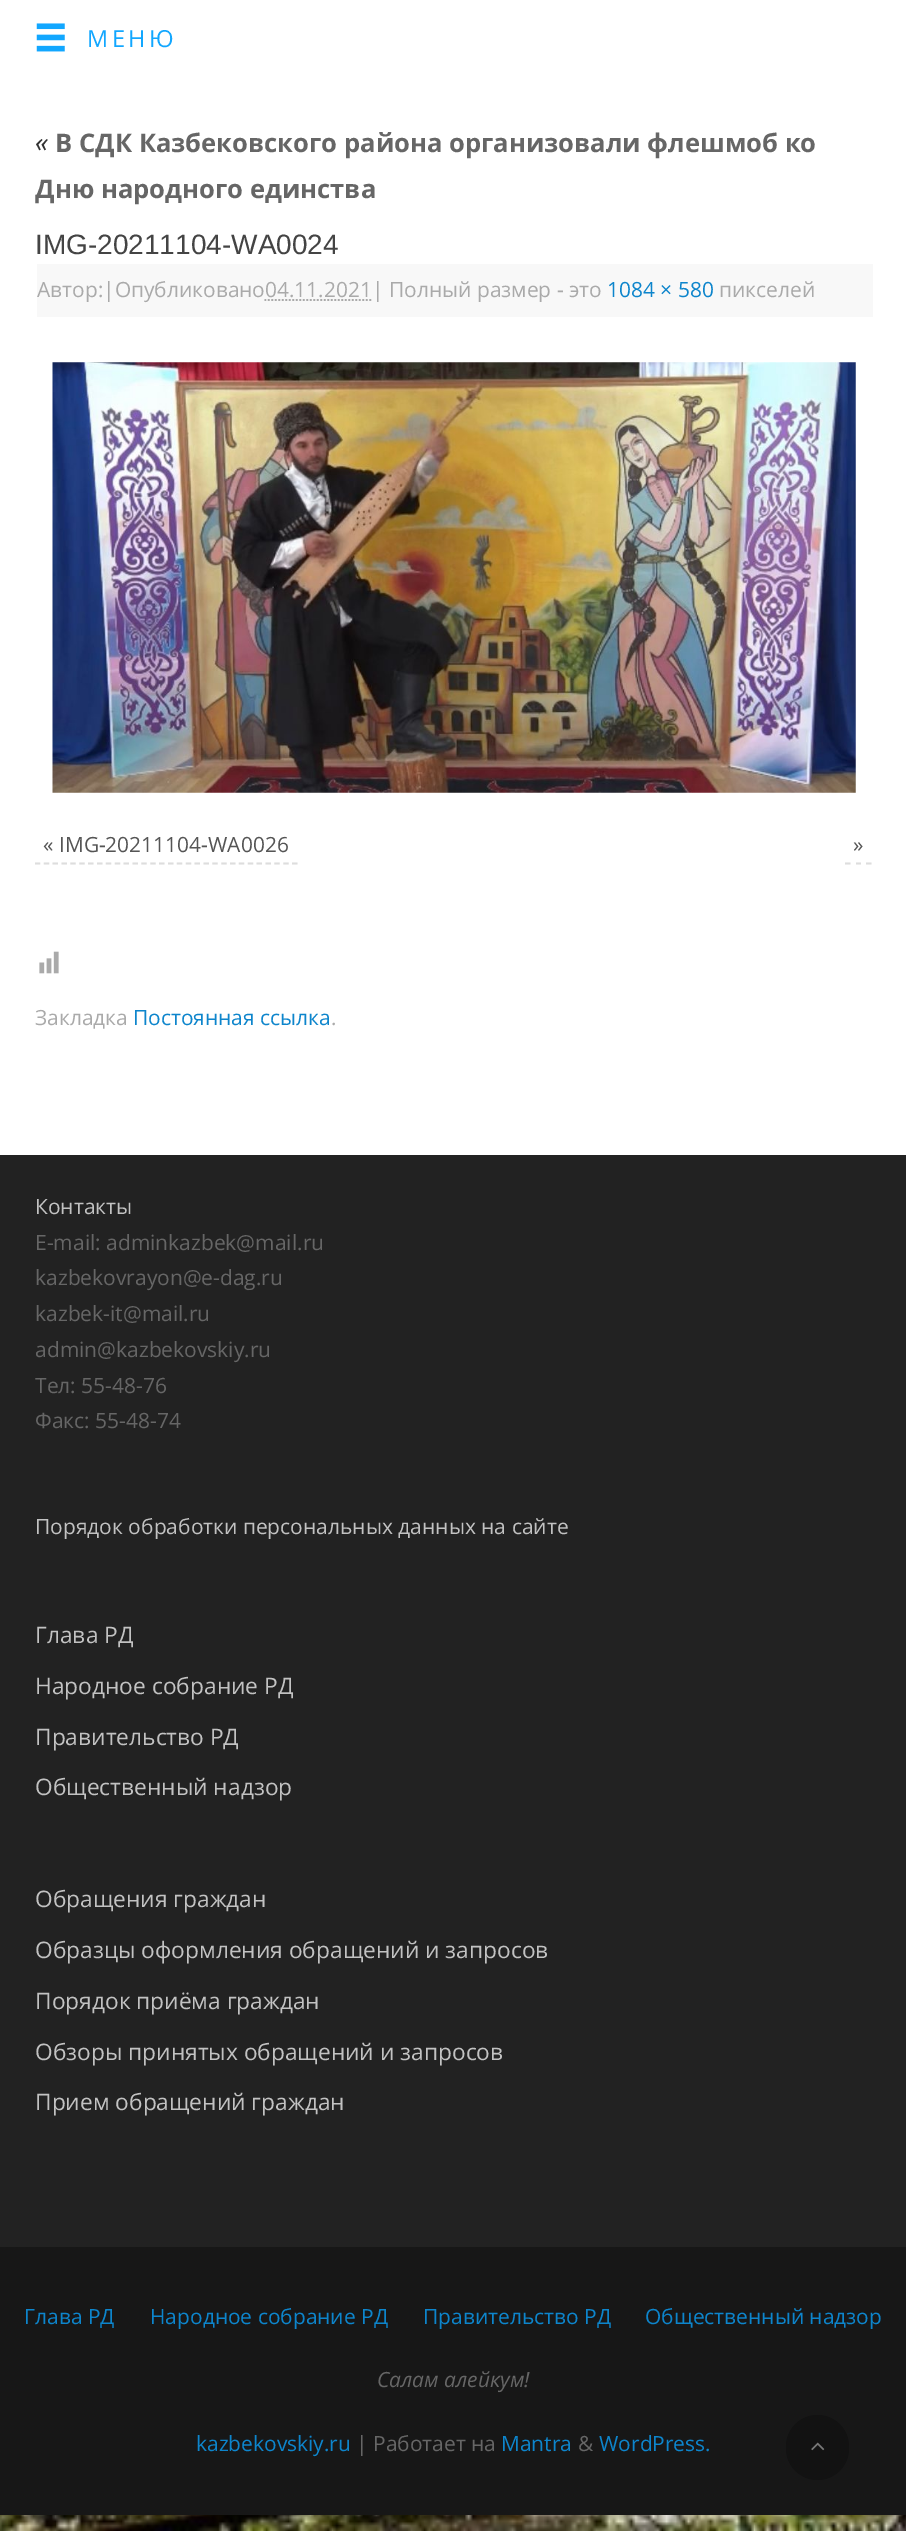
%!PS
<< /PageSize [906 2531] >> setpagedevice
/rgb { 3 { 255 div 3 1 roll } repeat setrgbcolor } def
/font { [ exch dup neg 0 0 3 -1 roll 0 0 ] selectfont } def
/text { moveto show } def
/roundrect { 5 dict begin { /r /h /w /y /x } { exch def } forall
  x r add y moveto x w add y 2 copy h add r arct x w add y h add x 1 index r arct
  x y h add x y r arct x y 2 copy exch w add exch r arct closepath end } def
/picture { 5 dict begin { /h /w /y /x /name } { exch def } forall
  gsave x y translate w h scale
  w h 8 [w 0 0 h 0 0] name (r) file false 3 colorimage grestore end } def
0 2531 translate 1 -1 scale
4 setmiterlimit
255 255 255 rgb
0 0 906 2531 rectfill
(img_01.rgb) 0 2515 906 16 picture
(img_02.rgb) 36 23 29 29 picture
248 248 248 rgb
37 264 836 53 rectfill
170 170 170 rgb
1.8 setlinewidth
[1.75 1.75] 0 setdash
264.5 300 moveto 107 0 rlineto stroke
(img_03.rgb) 52 362 804 431 picture
221 221 221 rgb
[5.25 3.62] 0 setdash
35 863.5 moveto 262.5 0 rlineto stroke
[] 0 setdash
845 863.5 moveto 5.5 0 rlineto 856 863.5 moveto 5 0 rlineto 866 863.5 moveto 5.5 0 rlineto stroke
(img_04.rgb) 39 951 20 23 picture
34 34 34 rgb
0 1155 906 1092 rectfill
23 23 23 rgb
0 2247 906 268 rectfill
18 18 18 rgb
786 2415 63 65 31.5 roundrect fill
(img_05.rgb) 811 2442 14 9 picture
/OpenSans-Regular 23.5 font
18 167 255 rgb
87 47 moveto 3.5 0 (МЕНЮ) ashow
/OpenSans-Italic 28 font
51 51 51 rgb
(«) 35 152 text
/OpenSans-Bold 25.6 font
102 102 102 rgb
(В СДК Казбековского района организовали флешмоб ко) 55 152 text
(Дню народного единства) 35 198 text
/LiberationSans-Regular 28 font
68 68 68 rgb
(IMG-20211104-WA0024) 35 254 text
/OpenSans-Regular 20.95 font
170 170 170 rgb
(Автор:|Опубликовано04.11.2021| Полный размер - это) 37 297 text
13 133 204 rgb
(1084 × 580) 607 297 text
170 170 170 rgb
(пикселей) 719 297 text
85 85 85 rgb
(« IMG-20211104-WA0026) 43 852 text
(») 853 852 text
170 170 170 rgb
(Закладка) 35 1025 text
13 133 204 rgb
(Постоянная ссылка) 133 1025 text
170 170 170 rgb
(.) 331 1025 text
/OpenSans-Regular 21 font
194 194 194 rgb
(Контакты) 35 1214 text
102 102 102 rgb
(E-mail: adminkazbek@mail.ru) 35 1250 text
(kazbekovrayon@e-dag.ru) 35 1285 text
(kazbek-it@mail.ru) 35 1321 text
(admin@kazbekovskiy.ru) 35 1357 text
(Тел: 55-48-76) 35 1393 text
(Факс: 55-48-74) 35 1428 text
194 194 194 rgb
(Порядок обработки персональных данных на сайте) 35 1534 text
/OpenSans-Regular 22.75 font
(Глава РД) 35 1643 text
(Народное собрание РД) 35 1694 text
(Правительство РД) 35 1745 text
(Общественный надзор) 35 1795 text
(Обращения граждан) 35 1907 text
(Образцы оформления обращений и запросов) 35 1958 text
(Порядок приёма граждан) 35 2009 text
(Обзоры принятых обращений и запросов) 35 2060 text
(Прием обращений граждан) 35 2110 text
/OpenSans-Regular 20.95 font
13 133 204 rgb
(Глава РД) 24 2324 text
(Народное собрание РД) 150 2324 text
(Правительство РД) 423 2324 text
(Общественный надзор) 645 2324 text
/OpenSans-Italic 20.95 font
102 102 102 rgb
(Салам алейкум!) 377 2387 text
/OpenSans-Regular 20.95 font
13 133 204 rgb
(kazbekovskiy.ru) 196 2451 text
102 102 102 rgb
(| Работает на) 356 2451 text
13 133 204 rgb
(Mantra) 501 2451 text
102 102 102 rgb
(&) 578 2451 text
13 133 204 rgb
(WordPress.) 599 2451 text
showpage
